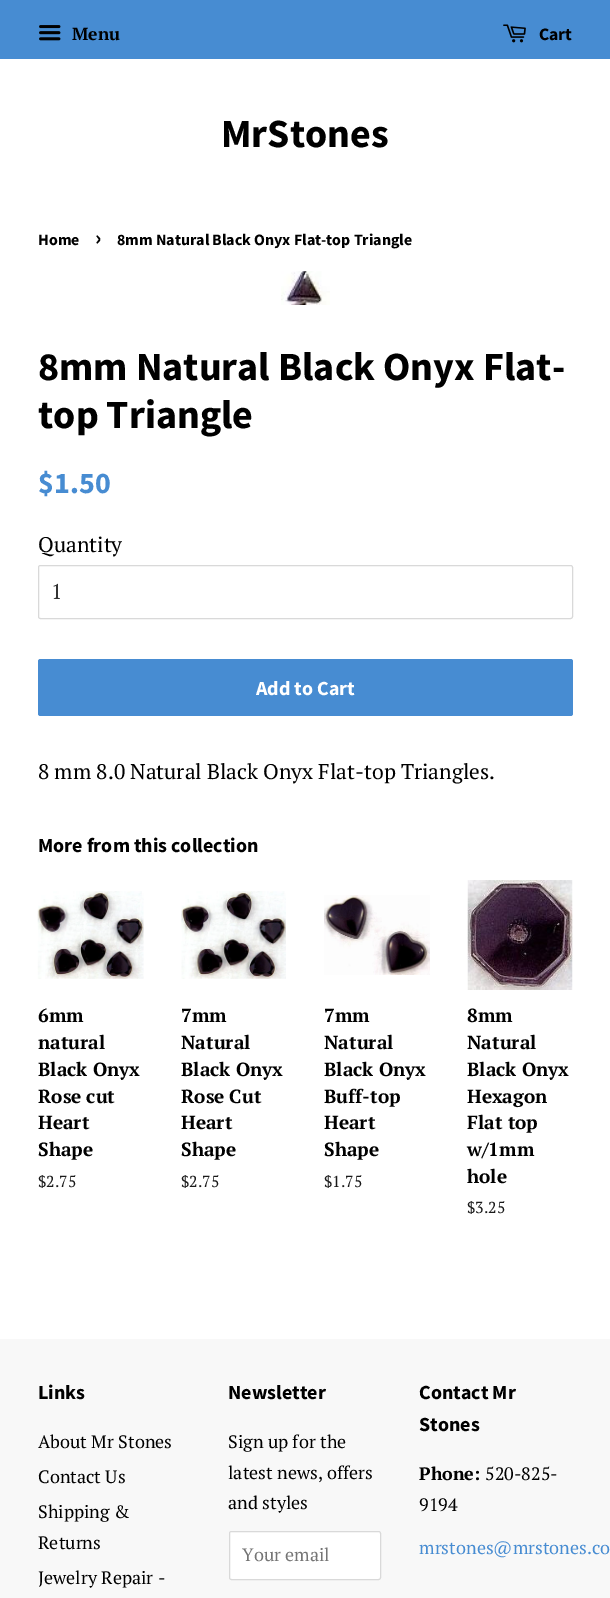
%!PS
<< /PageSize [610 1598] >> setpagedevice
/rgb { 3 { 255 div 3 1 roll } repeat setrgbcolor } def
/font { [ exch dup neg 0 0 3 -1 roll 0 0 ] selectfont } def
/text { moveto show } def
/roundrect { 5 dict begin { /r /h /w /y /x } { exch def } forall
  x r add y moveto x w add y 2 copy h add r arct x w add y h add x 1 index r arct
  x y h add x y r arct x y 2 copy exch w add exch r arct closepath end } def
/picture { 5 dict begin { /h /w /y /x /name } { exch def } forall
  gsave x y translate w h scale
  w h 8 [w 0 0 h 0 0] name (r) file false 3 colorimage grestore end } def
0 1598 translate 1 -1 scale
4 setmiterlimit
255 255 255 rgb
0 0 610 1598 rectfill
71 140 210 rgb
0 0 610 59 rectfill
(img_01.rgb) 39 25 22 16 picture
(img_02.rgb) 503 24 23 19 picture
(img_03.rgb) 281 271 49 34 picture
217 217 217 rgb
38.5 565.5 534 53 2 roundrect stroke
71 140 210 rgb
38 659 535 57 2.5 roundrect fill
(img_04.rgb) 37 891 107 88 picture
(img_05.rgb) 181 891 105 88 picture
(img_06.rgb) 324 895 106 80 picture
(img_07.rgb) 467 880 106 110 picture
248 248 248 rgb
0 1339 610 259 rectfill
255 255 255 rgb
229.5 1531.5 151 48 2 roundrect gsave fill grestore
217 217 217 rgb
stroke
/PTSerif-Bold 17.5 font
0 0 0 rgb
(Menu) 72 40 text
/SourceSansPro-Bold 17.5 font
(Cart) 539 40 text
/SourceSansPro-Bold 40 font
(MrStones) 221 147 text
/SourceSansPro-Bold 15.9 font
(Home) 38 245 text
/SourceSansPro-Bold 22 font
(›) 95 245 text
/SourceSansPro-Bold 15.9 font
(8mm Natural Black Onyx Flat-top Triangle) 117 245 text
/SourceSansPro-Bold 40 font
(8mm Natural Black Onyx Flat-) 38 380 text
(top Triangle) 38 428 text
/SourceSansPro-Bold 30 font
71 140 210 rgb
($1.50) 38 493 text
/PTSerif-Regular 21.25 font
0 0 0 rgb
(Quantity) 38 552 text
51 51 51 rgb
(1) 51 599 text
/SourceSansPro-Bold 20 font
255 255 255 rgb
(Add to Cart) 256 695 text
/PTSerif-Regular 21.25 font
0 0 0 rgb
(8 mm 8.0 Natural Black Onyx Flat-top Triangles.) 38 779 text
/SourceSansPro-Bold 20 font
(More from this collection) 38 852 text
/PTSerif-Bold 19 font
(6mm) 38 1022 text
(natural) 38 1049 text
(Black Onyx) 38 1076 text
(Rose cut) 38 1103 text
(Heart) 38 1129 text
(Shape) 38 1156 text
/PTSerif-Regular 15.9 font
26 26 26 rgb
($2.75) 38 1187 text
/PTSerif-Bold 19 font
0 0 0 rgb
(7mm) 181 1022 text
(Natural) 181 1049 text
(Black Onyx) 181 1076 text
(Rose Cut) 181 1103 text
(Heart) 181 1129 text
(Shape) 181 1156 text
/PTSerif-Regular 15.9 font
26 26 26 rgb
($2.75) 181 1187 text
/PTSerif-Bold 19 font
0 0 0 rgb
(7mm) 324 1022 text
(Natural) 324 1049 text
(Black Onyx) 324 1076 text
(Buff-top) 324 1103 text
(Heart) 324 1129 text
(Shape) 324 1156 text
/PTSerif-Regular 15.9 font
26 26 26 rgb
($1.75) 324 1187 text
/PTSerif-Bold 19 font
0 0 0 rgb
(8mm) 467 1022 text
(Natural) 467 1049 text
(Black Onyx) 467 1076 text
(Hexagon) 467 1103 text
(Flat top) 467 1129 text
(w/1mm) 467 1156 text
(hole) 467 1183 text
/PTSerif-Regular 15.9 font
26 26 26 rgb
($3.25) 467 1213 text
/SourceSansPro-Bold 20 font
0 0 0 rgb
(Links) 38 1399 text
/PTSerif-Regular 18 font
(About Mr Stones) 38 1448 text
(Contact Us) 38 1483 text
(Shipping &) 38 1518 text
(Returns) 38 1549 text
(Jewelry Repair -) 38 1584 text
/SourceSansPro-Bold 20 font
(Newsletter) 228 1399 text
/PTSerif-Regular 18 font
(Sign up for the) 228 1448 text
(latest news, offers) 228 1479 text
(and styles) 228 1509 text
117 117 117 rgb
(Your email) 242 1561 text
/SourceSansPro-Bold 20 font
0 0 0 rgb
(Contact Mr) 419 1399 text
(Stones) 419 1431 text
/PTSerif-Bold 18 font
(Phone:) 419 1480 text
/PTSerif-Regular 18 font
(520-825-) 485 1480 text
(9194) 419 1511 text
71 140 210 rgb
(mrstones@mrstones.co) 419 1554 text
showpage
